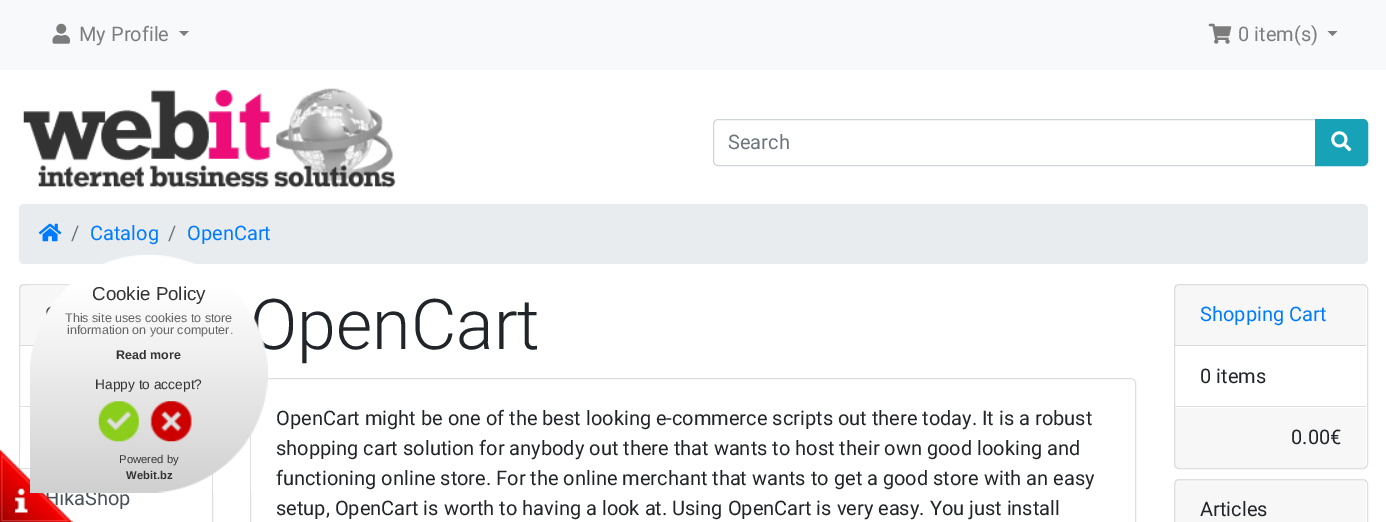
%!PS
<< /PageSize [1386 522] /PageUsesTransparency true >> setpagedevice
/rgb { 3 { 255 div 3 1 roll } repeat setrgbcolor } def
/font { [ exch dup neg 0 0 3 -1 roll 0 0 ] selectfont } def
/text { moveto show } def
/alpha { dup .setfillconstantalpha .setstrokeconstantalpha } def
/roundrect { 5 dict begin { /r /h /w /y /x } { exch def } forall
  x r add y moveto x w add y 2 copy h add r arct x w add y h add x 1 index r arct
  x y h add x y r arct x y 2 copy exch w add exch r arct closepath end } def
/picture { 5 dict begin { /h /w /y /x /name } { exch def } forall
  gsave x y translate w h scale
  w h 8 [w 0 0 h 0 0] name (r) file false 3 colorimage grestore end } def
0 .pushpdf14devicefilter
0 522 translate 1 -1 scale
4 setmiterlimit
255 255 255 rgb
0 0 1386 522 rectfill
248 249 250 rgb
0 0 1386 70 rectfill
(img_01.rgb) 52 23 18 21 picture
124 125 125 rgb
179 31 moveto 10 0 rlineto -5 5 rlineto closepath fill
(img_02.rgb) 1208 23 24 21 picture
1327.5 31 moveto 10 0 rlineto -5 5 rlineto closepath fill
(img_03.rgb) 23 88 373 100 picture
206 212 218 rgb
718 119.5 moveto 597.5 0 rlineto 0 46 rlineto -597.5 0 rlineto -2.5 0 -4.5 -2 -4.5 -4.5 rcurveto 0 -37 rlineto 0 -2.5 2 -4.5 4.5 -4.5 rcurveto closepath stroke
23 162 184 rgb
1315.5 119.5 moveto 47.5 0 rlineto 2.5 0 4.5 2 4.5 4.5 rcurveto 0 37 rlineto 0 2.5 -2 4.5 -4.5 4.5 rcurveto -47.5 0 rlineto closepath gsave fill grestore
stroke
(img_04.rgb) 1331 131 21 21 picture
233 236 239 rgb
19 204 1349 60 5 roundrect fill
(img_05.rgb) 38 223 24 19 picture
223 223 223 rgb
19.5 284.5 193 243 4.5 roundrect stroke
0.03 alpha
0 0 0 rgb
20 285 52 60 rectfill
1 alpha
216 216 216 rgb
20 345 14 1 rectfill
223 223 223 rgb
20 406 10 1 rectfill
20 468 10 1 rectfill
250.5 378.5 885 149 4.5 roundrect stroke
1174.5 284.5 193 184 4.5 roundrect stroke
0.03 alpha
0 0 0 rgb
1175 285 191 60 rectfill
1 alpha
216 216 216 rgb
1175 345 191 1 rectfill
223 223 223 rgb
1175 406 191 1 rectfill
0.03 alpha
0 0 0 rgb
1175 408 191 60 rectfill
1 alpha
223 223 223 rgb
1174.5 479.5 193 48 4.5 roundrect stroke
0.03 alpha
0 0 0 rgb
1175 480 191 42 rectfill
/Roboto-Regular 20 font
1 alpha
124 125 125 rgb
(My Profile) 79 41 text
(0 item\(s\)) 1238 41 text
108 117 125 rgb
(Search) 728 149 text
(/) 71 240 text
0 123 255 rgb
(Catalog) 90 240 text
108 117 125 rgb
(/) 168 240 text
0 123 255 rgb
(OpenCart) 187 240 text
73 80 87 rgb
(HikaShop) 45 505 text
/Roboto-Light 70 font
33 37 41 rgb
(OpenCart) 250 349 text
/Roboto-Regular 20 font
(OpenCart might be one of the best looking e-commerce scripts out there today. It is a robust) 276 425 text
(shopping cart solution for anybody out there that wants to host their own good looking and) 276 455 text
(functioning online store. For the online merchant that wants to get a good store with an easy) 276 485 text
(setup, OpenCart is worth to having a look at. Using OpenCart is very easy. You just install) 276 515 text
0 123 255 rgb
(Shopping Cart) 1200 321 text
33 37 41 rgb
(0 items) 1200 383 text
(0.00€) 1291 444 text
(Articles) 1200 516 text
(img_06.rgb) 0 450 73 72 picture
(img_07.rgb) 30 255 238 238 picture
/LiberationSans-Regular 18.75 font
51 51 51 rgb
(Cookie Policy) 92 300 text
/LiberationSans-Regular 12.5 font
102 102 102 rgb
(This site uses cookies to store) 65 322 text
(information on your computer.) 67 334 text
/LiberationSans-Bold 12.5 font
51 51 51 rgb
(Read more) 116 359 text
/LiberationSans-Regular 13.75 font
(Happy to accept?) 95 389 text
(img_08.rgb) 98 401 41 41 picture
(img_09.rgb) 150 401 42 41 picture
/LiberationSans-Regular 11.25 font
(Powered by) 119 463 text
/LiberationSans-Bold 11.25 font
(Webit.bz) 126 479 text
.poppdf14devicefilter showpage
